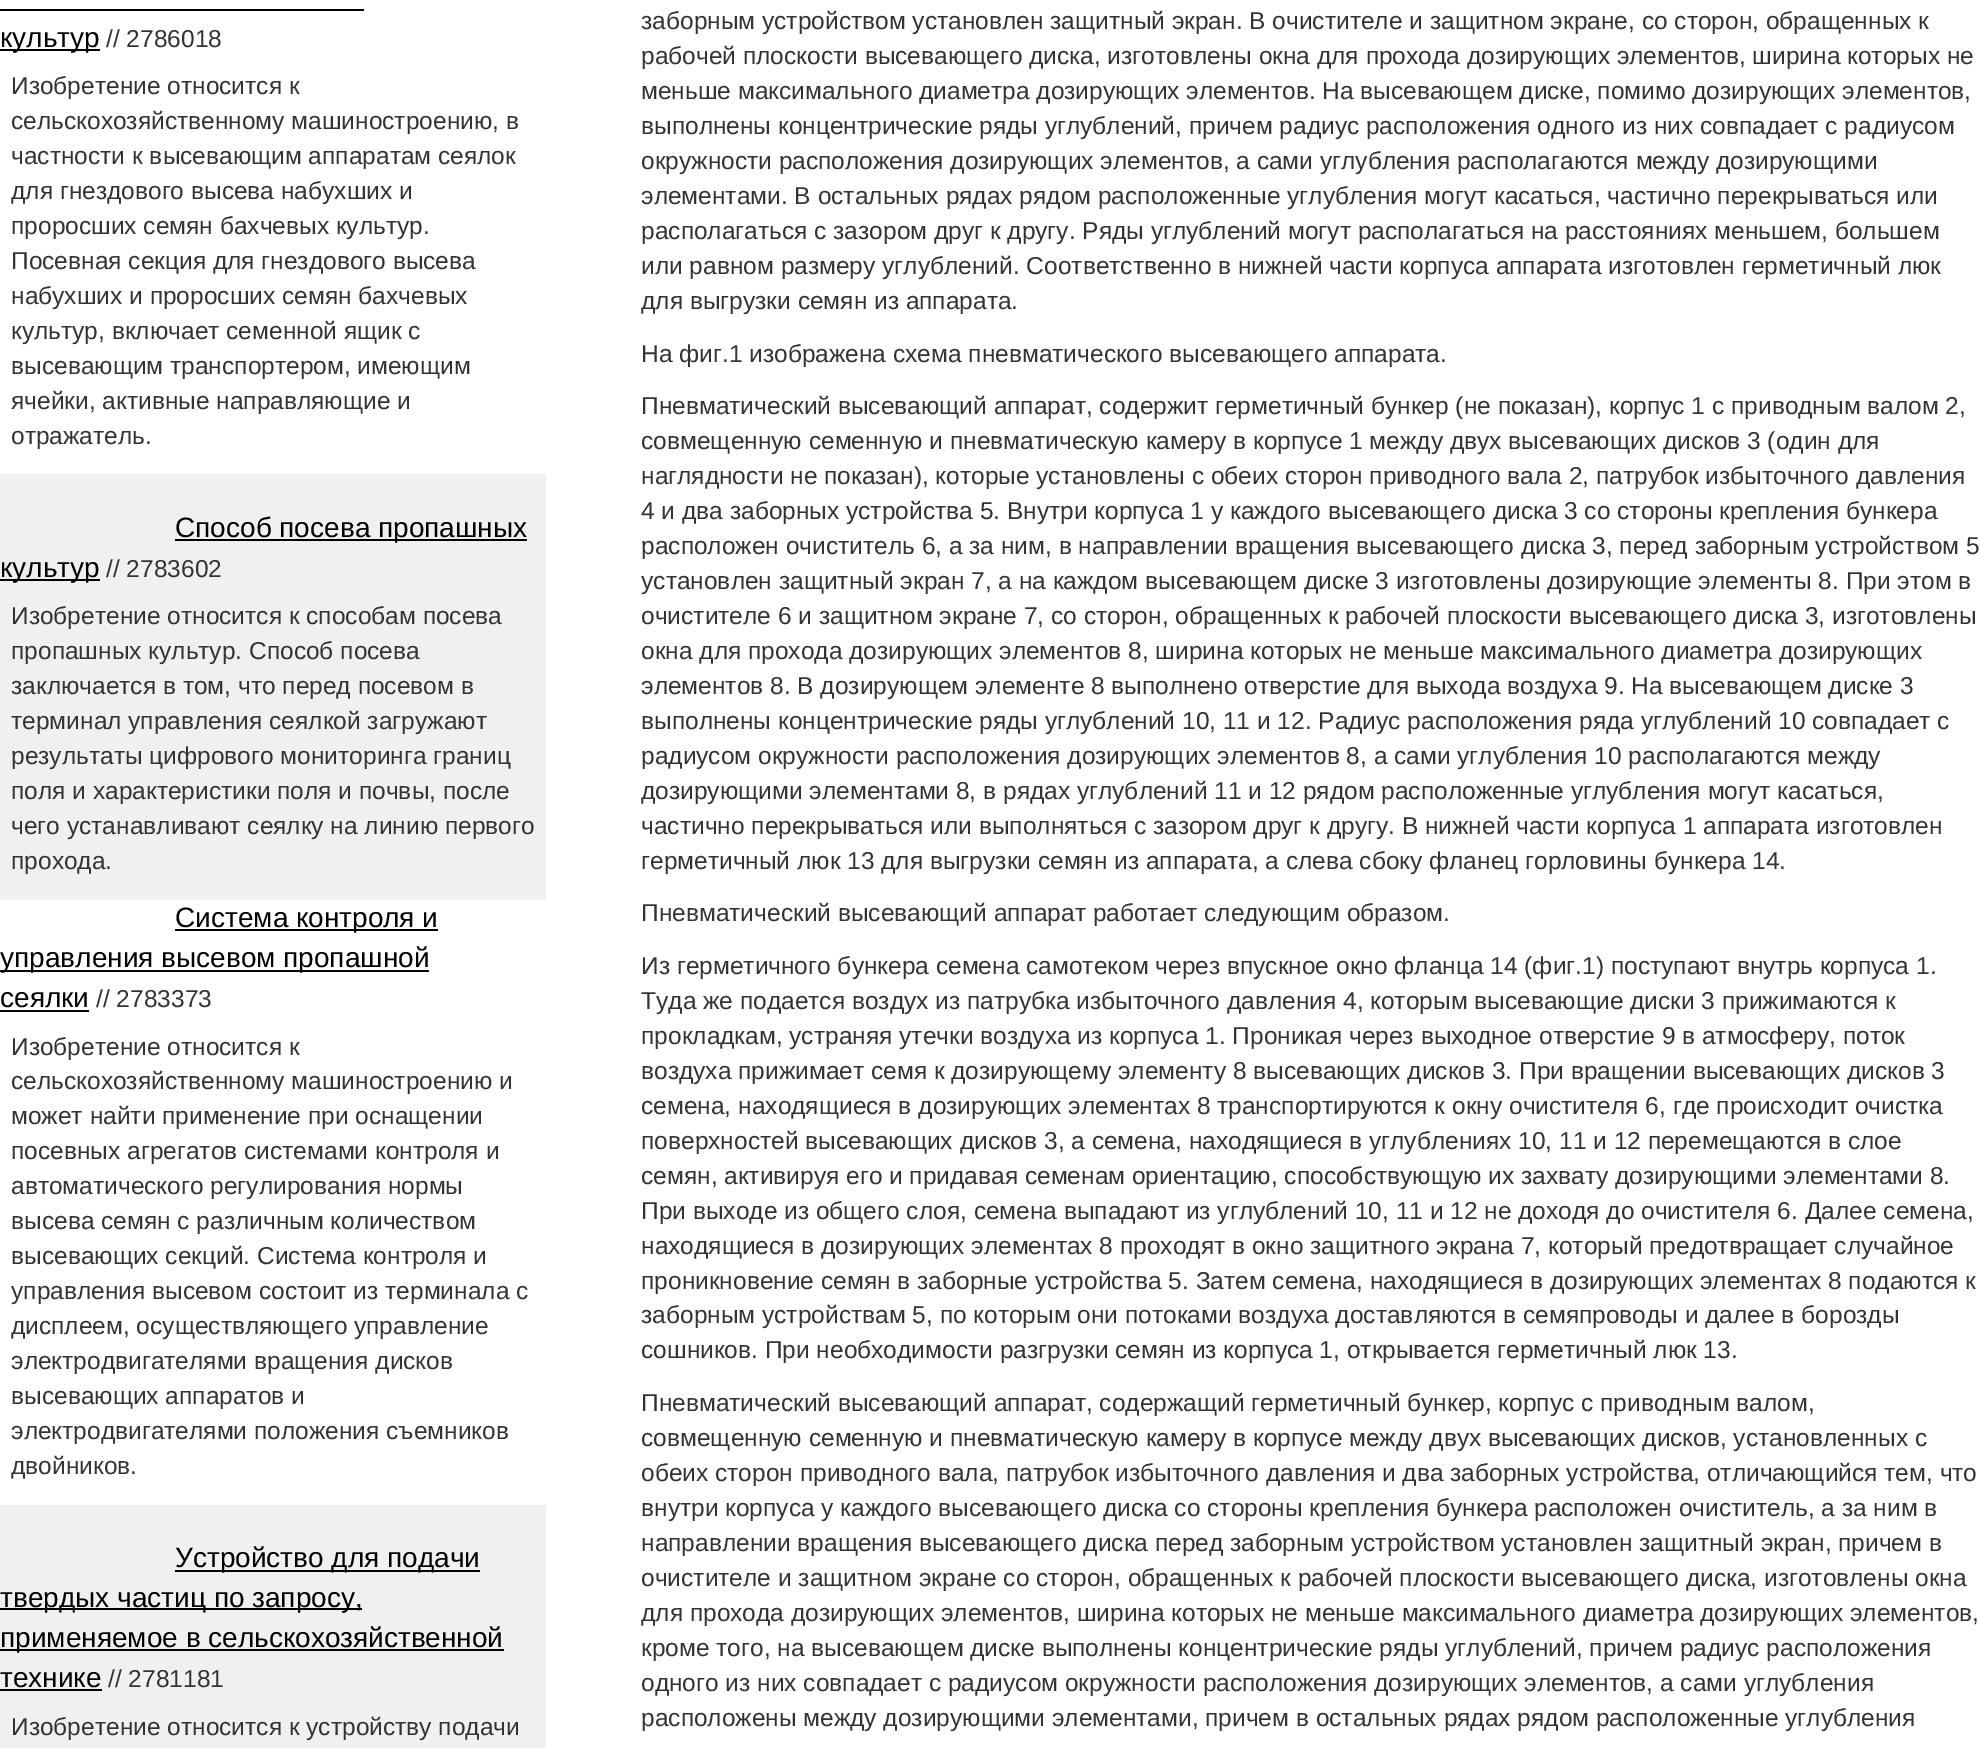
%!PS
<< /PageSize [1980 1748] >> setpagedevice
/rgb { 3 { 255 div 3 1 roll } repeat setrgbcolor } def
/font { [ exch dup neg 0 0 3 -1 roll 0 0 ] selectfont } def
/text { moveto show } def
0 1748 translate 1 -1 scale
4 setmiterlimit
255 255 255 rgb
0 0 1980 1748 rectfill
0 0 0 rgb
0 9 364 2 rectfill
0 49 100 2 rectfill
240 240 240 rgb
0 474 546 426 rectfill
0 0 0 rgb
175 539 352 2 rectfill
0 579 100 2 rectfill
175 929 263 2 rectfill
0 970 429 2 rectfill
0 1010 89 2 rectfill
240 240 240 rgb
0 1505 546 243 rectfill
0 0 0 rgb
175 1570 305 2 rectfill
0 1608 362 2 rectfill
0 1649 504 2 rectfill
0 1689 102 2 rectfill
/LiberationSans-Regular 28 font
(культур) 0 47 text
/LiberationSans-Regular 24.5 font
51 51 51 rgb
(// 2786018) 106 47 text
(Изобретение относится к) 11 94 text
(сельскохозяйственному машиностроению, в) 11 129 text
(частности к высевающим аппаратам сеялок) 11 164 text
(для гнездового высева набухших и) 11 199 text
(проросших семян бахчевых культур.) 11 234 text
(Посевная секция для гнездового высева) 11 269 text
(набухших и проросших семян бахчевых) 11 304 text
(культур, включает семенной ящик с) 11 339 text
(высевающим транспортером, имеющим) 11 374 text
(ячейки, активные направляющие и) 11 409 text
(отражатель.) 11 444 text
/LiberationSans-Regular 28 font
0 0 0 rgb
(Способ посева пропашных) 175 537 text
(культур) 0 577 text
/LiberationSans-Regular 24.5 font
51 51 51 rgb
(// 2783602) 106 577 text
(Изобретение относится к способам посева) 11 624 text
(пропашных культур. Способ посева) 11 659 text
(заключается в том, что перед посевом в) 11 694 text
(терминал управления сеялкой загружают) 11 729 text
(результаты цифрового мониторинга границ) 11 764 text
(поля и характеристики поля и почвы, после) 11 799 text
(чего устанавливают сеялку на линию первого) 11 834 text
(прохода.) 11 869 text
/LiberationSans-Regular 28 font
0 0 0 rgb
(Система контроля и) 175 927 text
(управления высевом пропашной) 0 967 text
(сеялки) 0 1007 text
/LiberationSans-Regular 24.5 font
51 51 51 rgb
(// 2783373) 96 1007 text
(Изобретение относится к) 11 1055 text
(сельскохозяйственному машиностроению и) 11 1089 text
(может найти применение при оснащении) 11 1124 text
(посевных агрегатов системами контроля и) 11 1159 text
(автоматического регулирования нормы) 11 1194 text
(высева семян с различным количеством) 11 1229 text
(высевающих секций. Система контроля и) 11 1264 text
(управления высевом состоит из терминала с) 11 1299 text
(дисплеем, осуществляющего управление) 11 1334 text
(электродвигателями вращения дисков) 11 1369 text
(высевающих аппаратов и) 11 1404 text
(электродвигателями положения съемников) 11 1439 text
(двойников.) 11 1474 text
/LiberationSans-Regular 28 font
0 0 0 rgb
(Устройство для подачи) 175 1567 text
(твердых частиц по запросу,) 0 1607 text
(применяемое в сельскохозяйственной) 0 1647 text
(технике) 0 1687 text
/LiberationSans-Regular 24.5 font
51 51 51 rgb
(// 2781181) 108 1687 text
(Изобретение относится к устройству подачи) 11 1735 text
(заборным устройством установлен защитный экран. В очистителе и защитном экране, со сторон, обращенных к) 641 29 text
(рабочей плоскости высевающего диска, изготовлены окна для прохода дозирующих элементов, ширина которых не) 641 64 text
(меньше максимального диаметра дозирующих элементов. На высевающем диске, помимо дозирующих элементов,) 641 99 text
(выполнены концентрические ряды углублений, причем радиус расположения одного из них совпадает с радиусом) 641 134 text
(окружности расположения дозирующих элементов, а сами углубления располагаются между дозирующими) 641 169 text
(элементами. В остальных рядах рядом расположенные углубления могут касаться, частично перекрываться или) 641 204 text
(располагаться с зазором друг к другу. Ряды углублений могут располагаться на расстояниях меньшем, большем) 641 239 text
(или равном размеру углублений. Соответственно в нижней части корпуса аппарата изготовлен герметичный люк) 641 274 text
(для выгрузки семян из аппарата.) 641 309 text
(На фиг.1 изображена схема пневматического высевающего аппарата.) 641 362 text
(Пневматический высевающий аппарат, содержит герметичный бункер \(не показан\), корпус 1 с приводным валом 2,) 641 414 text
(совмещенную семенную и пневматическую камеру в корпусе 1 между двух высевающих дисков 3 \(один для) 641 449 text
(наглядности не показан\), которые установлены с обеих сторон приводного вала 2, патрубок избыточного давления) 641 484 text
(4 и два заборных устройства 5. Внутри корпуса 1 у каждого высевающего диска 3 со стороны крепления бункера) 641 519 text
(расположен очиститель 6, а за ним, в направлении вращения высевающего диска 3, перед заборным устройством 5) 641 554 text
(установлен защитный экран 7, а на каждом высевающем диске 3 изготовлены дозирующие элементы 8. При этом в) 641 589 text
(очистителе 6 и защитном экране 7, со сторон, обращенных к рабочей плоскости высевающего диска 3, изготовлены) 641 624 text
(окна для прохода дозирующих элементов 8, ширина которых не меньше максимального диаметра дозирующих) 641 659 text
(элементов 8. В дозирующем элементе 8 выполнено отверстие для выхода воздуха 9. На высевающем диске 3) 641 694 text
(выполнены концентрические ряды углублений 10, 11 и 12. Радиус расположения ряда углублений 10 совпадает с) 641 729 text
(радиусом окружности расположения дозирующих элементов 8, а сами углубления 10 располагаются между) 641 764 text
(дозирующими элементами 8, в рядах углублений 11 и 12 рядом расположенные углубления могут касаться,) 641 799 text
(частично перекрываться или выполняться с зазором друг к другу. В нижней части корпуса 1 аппарата изготовлен) 641 834 text
(герметичный люк 13 для выгрузки семян из аппарата, а слева сбоку фланец горловины бункера 14.) 641 869 text
(Пневматический высевающий аппарат работает следующим образом.) 641 921 text
(Из герметичного бункера семена самотеком через впускное окно фланца 14 \(фиг.1\) поступают внутрь корпуса 1.) 641 974 text
(Туда же подается воздух из патрубка избыточного давления 4, которым высевающие диски 3 прижимаются к) 641 1009 text
(прокладкам, устраняя утечки воздуха из корпуса 1. Проникая через выходное отверстие 9 в атмосферу, поток) 641 1044 text
(воздуха прижимает семя к дозирующему элементу 8 высевающих дисков 3. При вращении высевающих дисков 3) 641 1079 text
(семена, находящиеся в дозирующих элементах 8 транспортируются к окну очистителя 6, где происходит очистка) 641 1114 text
(поверхностей высевающих дисков 3, а семена, находящиеся в углублениях 10, 11 и 12 перемещаются в слое) 641 1149 text
(семян, активируя его и придавая семенам ориентацию, способствующую их захвату дозирующими элементами 8.) 641 1184 text
(При выходе из общего слоя, семена выпадают из углублений 10, 11 и 12 не доходя до очистителя 6. Далее семена,) 641 1219 text
(находящиеся в дозирующих элементах 8 проходят в окно защитного экрана 7, который предотвращает случайное) 641 1254 text
(проникновение семян в заборные устройства 5. Затем семена, находящиеся в дозирующих элементах 8 подаются к) 641 1289 text
(заборным устройствам 5, по которым они потоками воздуха доставляются в семяпроводы и далее в борозды) 641 1323 text
(сошников. При необходимости разгрузки семян из корпуса 1, открывается герметичный люк 13.) 641 1358 text
(Пневматический высевающий аппарат, содержащий герметичный бункер, корпус с приводным валом,) 641 1411 text
(совмещенную семенную и пневматическую камеру в корпусе между двух высевающих дисков, установленных с) 641 1446 text
(обеих сторон приводного вала, патрубок избыточного давления и два заборных устройства, отличающийся тем, что) 641 1481 text
(внутри корпуса у каждого высевающего диска со стороны крепления бункера расположен очиститель, а за ним в) 641 1516 text
(направлении вращения высевающего диска перед заборным устройством установлен защитный экран, причем в) 641 1551 text
(очистителе и защитном экране со сторон, обращенных к рабочей плоскости высевающего диска, изготовлены окна) 641 1586 text
(для прохода дозирующих элементов, ширина которых не меньше максимального диаметра дозирующих элементов,) 641 1621 text
(кроме того, на высевающем диске выполнены концентрические ряды углублений, причем радиус расположения) 641 1656 text
(одного из них совпадает с радиусом окружности расположения дозирующих элементов, а сами углубления) 641 1691 text
(расположены между дозирующими элементами, причем в остальных рядах рядом расположенные углубления) 641 1726 text
showpage
